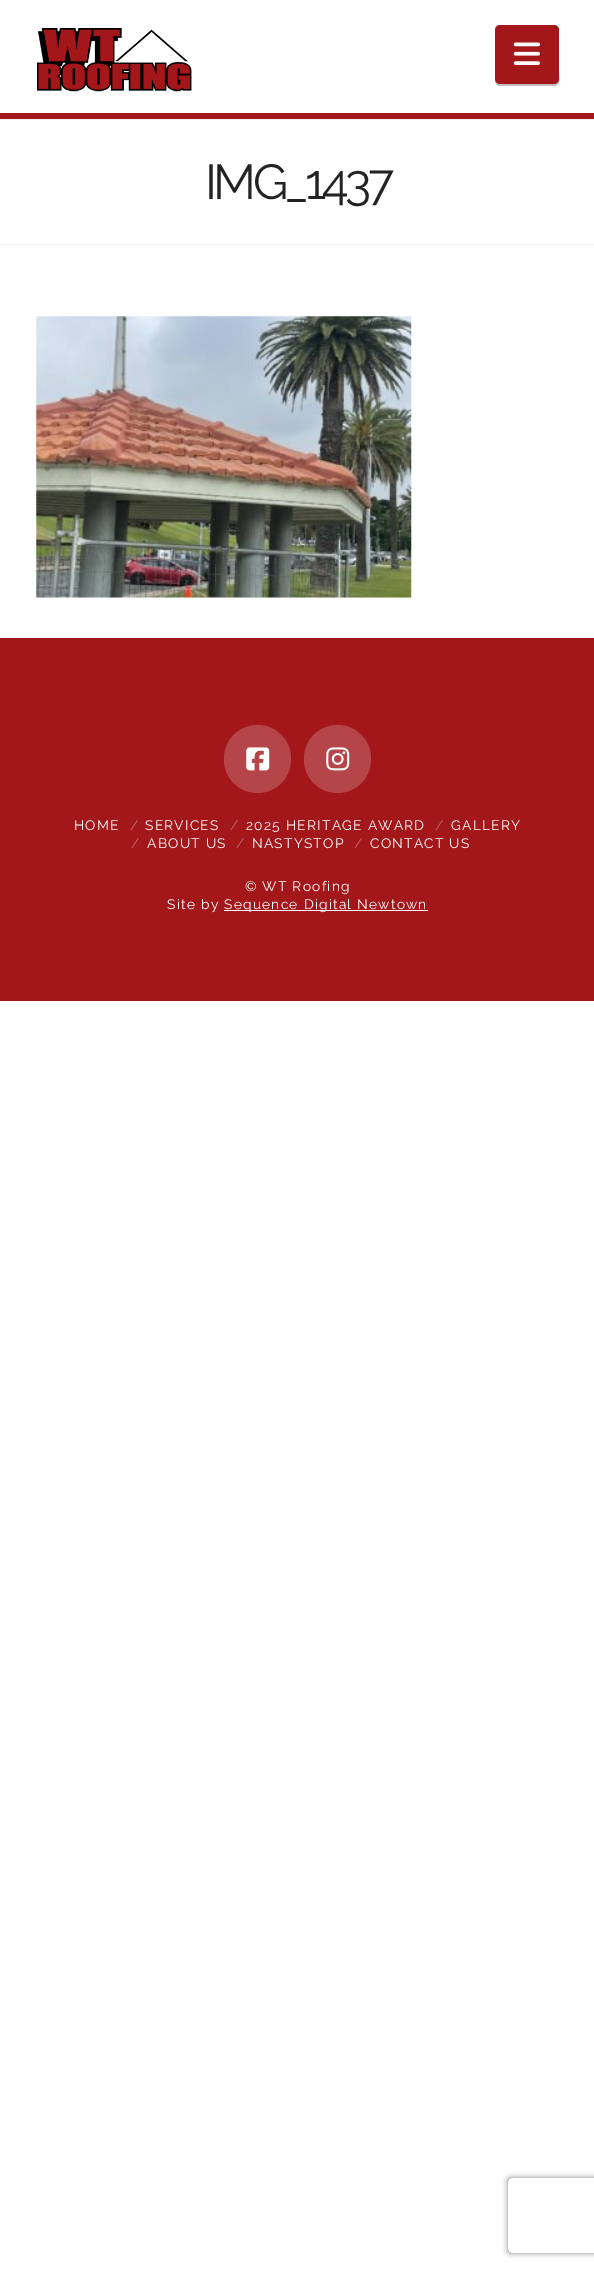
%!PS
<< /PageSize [594 2269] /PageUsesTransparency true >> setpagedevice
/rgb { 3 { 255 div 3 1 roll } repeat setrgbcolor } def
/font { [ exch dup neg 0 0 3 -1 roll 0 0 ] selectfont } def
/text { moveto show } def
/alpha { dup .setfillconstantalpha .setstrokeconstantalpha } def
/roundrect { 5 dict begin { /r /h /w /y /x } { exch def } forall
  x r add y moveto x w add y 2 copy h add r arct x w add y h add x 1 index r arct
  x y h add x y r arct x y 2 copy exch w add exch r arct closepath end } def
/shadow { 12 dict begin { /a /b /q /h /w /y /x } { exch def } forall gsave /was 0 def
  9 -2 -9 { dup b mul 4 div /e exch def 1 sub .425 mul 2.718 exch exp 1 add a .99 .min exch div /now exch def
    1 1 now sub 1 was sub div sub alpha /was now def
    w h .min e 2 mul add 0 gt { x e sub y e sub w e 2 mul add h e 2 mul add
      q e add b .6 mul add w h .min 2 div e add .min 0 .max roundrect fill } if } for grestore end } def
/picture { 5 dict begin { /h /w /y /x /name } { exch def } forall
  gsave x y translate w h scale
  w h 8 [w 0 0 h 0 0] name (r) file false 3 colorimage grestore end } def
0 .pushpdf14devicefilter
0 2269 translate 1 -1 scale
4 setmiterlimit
255 255 255 rgb
0 0 594 2269 rectfill
163 23 26 rgb
0 113 594 6 rectfill
(img_01.rgb) 37 28 155 64 picture
191 191 191 rgb
495 79 moveto 0 3 1 7 5 7 rcurveto 55 0 rlineto 6 -1 4 -9 4 -13 rcurveto 0 -42 rlineto 0 48 rlineto 0 3 -2 5 -5 5 rcurveto -54 0 rlineto -3 0 -5 -2 -5 -5 rcurveto closepath fill
163 23 26 rgb
495 25 64 59 5 roundrect fill
(img_02.rgb) 513 42 27 23 picture
242 242 242 rgb
0 119 594 1 rectfill
0 244 594 1 rectfill
(img_03.rgb) 36 316 376 282 picture
163 23 26 rgb
0 638 594 363 rectfill
181 69 72 rgb
224 725 67 68 33.5 roundrect fill
(img_04.rgb) 246 747 24 24 picture
304 725 67 68 33.5 roundrect fill
(img_05.rgb) 326 747 24 24 picture
255 255 255 rgb
224 910 204 1 rectfill
gsave
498 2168 moveto 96 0 rlineto 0 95 rlineto -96 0 rlineto closepath 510.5 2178 moveto 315 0 rlineto 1.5 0 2.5 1 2.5 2.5 rcurveto 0 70 rlineto 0 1.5 -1 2.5 -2.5 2.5 rcurveto -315 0 rlineto -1.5 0 -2.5 -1 -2.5 -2.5 rcurveto 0 -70 rlineto 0 -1.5 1 -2.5 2.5 -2.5 rcurveto closepath eoclip newpath
128 128 128 rgb
508 2178 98 75 2.5 3 1 shadow
grestore
/Raleway-Regular 49 font
35 35 35 rgb
205 199 moveto -3.75 0 (IMG_1437) ashow
/Raleway-Regular 13.75 font
255 255 255 rgb
74 830 moveto 1.25 0 (HOME) ashow
195 104 106 rgb
(/) 130 830 text
255 255 255 rgb
145 830 moveto 1.25 0 (SERVICES) ashow
195 104 106 rgb
(/) 230 830 text
255 255 255 rgb
246 830 moveto 1.25 0 (2025 HERITAGE AWARD) ashow
195 104 106 rgb
(/) 435 830 text
255 255 255 rgb
451 830 moveto 1.25 0 (GALLERY) ashow
195 104 106 rgb
(/) 131 848 text
255 255 255 rgb
147 848 moveto 1.25 0 (ABOUT US) ashow
195 104 106 rgb
(/) 236 848 text
255 255 255 rgb
252 848 moveto 1.25 0 (NASTYSTOP) ashow
195 104 106 rgb
(/) 354 848 text
255 255 255 rgb
370 848 moveto 1.25 0 (CONTACT US) ashow
245 891 moveto 1.25 0 (© WT Roofing) ashow
167 909 moveto 1.25 0 (Site by) ashow
224 909 moveto 1.25 0 (Sequence Digital Newtown) ashow
.poppdf14devicefilter showpage
